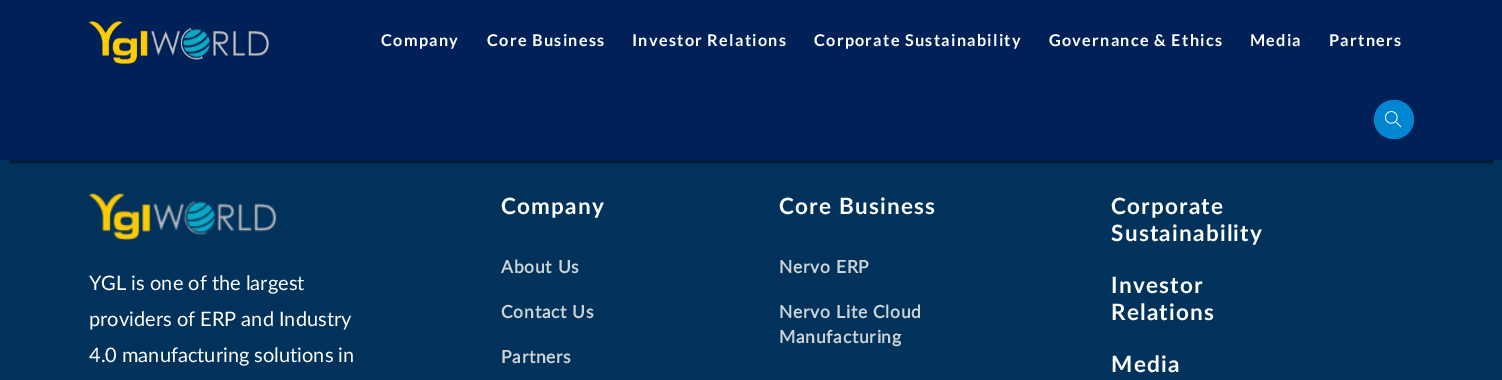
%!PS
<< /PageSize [1502 380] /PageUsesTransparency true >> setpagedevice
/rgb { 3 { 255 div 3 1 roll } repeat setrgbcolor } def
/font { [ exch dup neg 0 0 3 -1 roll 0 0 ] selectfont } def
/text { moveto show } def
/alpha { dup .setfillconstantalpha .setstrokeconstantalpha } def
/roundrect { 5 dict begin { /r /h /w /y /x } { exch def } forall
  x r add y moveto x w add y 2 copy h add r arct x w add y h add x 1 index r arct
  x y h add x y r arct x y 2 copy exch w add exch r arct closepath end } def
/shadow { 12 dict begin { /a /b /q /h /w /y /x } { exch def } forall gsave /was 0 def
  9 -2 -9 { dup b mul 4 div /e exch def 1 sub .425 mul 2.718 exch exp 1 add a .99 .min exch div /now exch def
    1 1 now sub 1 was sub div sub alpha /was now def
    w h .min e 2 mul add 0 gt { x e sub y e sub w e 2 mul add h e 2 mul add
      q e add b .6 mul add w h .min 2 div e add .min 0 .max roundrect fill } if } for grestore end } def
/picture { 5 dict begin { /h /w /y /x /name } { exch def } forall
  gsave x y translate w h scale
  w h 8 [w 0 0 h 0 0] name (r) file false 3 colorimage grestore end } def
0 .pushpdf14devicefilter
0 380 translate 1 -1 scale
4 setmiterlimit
0 50 91 rgb
0 0 1502 380 rectfill
0 0 0 rgb
10 23 1483 140 0 0.5 0.43 shadow
0 33 87 rgb
0 0 1502 160 rectfill
(img_01.rgb) 88 21 181 43 picture
3 134 209 rgb
1374 100 40 39 19.5 roundrect fill
(img_02.rgb) 1385 111 17 17 picture
(img_03.rgb) 88 193 189 47 picture
/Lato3-Bold 16.25 font
255 255 255 rgb
381 46 moveto 1.25 0 (Company) ashow
487 46 moveto 1.25 0 (Core Business) ashow
632 46 moveto 1.25 0 (Investor Relations) ashow
814 46 moveto 1.25 0 (Corporate Sustainability) ashow
1049 46 moveto 1.25 0 (Governance & Ethics) ashow
1250 46 moveto 1.25 0 (Media) ashow
1329 46 moveto 1.25 0 (Partners) ashow
/Lato-Regular 20 font
(YGL is one of the largest) 89 290 text
(providers of ERP and Industry) 89 326 text
(4.0 manufacturing solutions in) 89 362 text
/Lato-Bold 22.5 font
501 214 moveto 1.25 0 (Company) ashow
/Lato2-Bold 17.5 font
206 211 213 rgb
501 273 moveto 0.75 0 (About Us) ashow
501 318 moveto 0.75 0 (Contact Us) ashow
501 363 moveto 0.75 0 (Partners) ashow
/Lato-Bold 22.5 font
255 255 255 rgb
779 214 moveto 1.25 0 (Core Business) ashow
/Lato2-Bold 17.5 font
206 211 213 rgb
779 273 moveto 0.75 0 (Nervo ERP) ashow
779 318 moveto 0.75 0 (Nervo Lite Cloud) ashow
779 343 moveto 0.75 0 (Manufacturing) ashow
/Lato-Bold 22.5 font
255 255 255 rgb
1111 214 moveto 1.25 0 (Corporate) ashow
1111 241 moveto 1.25 0 (Sustainability) ashow
1111 293 moveto 1.25 0 (Investor) ashow
1111 320 moveto 1.25 0 (Relations) ashow
1111 372 moveto 1.25 0 (Media) ashow
.poppdf14devicefilter showpage
